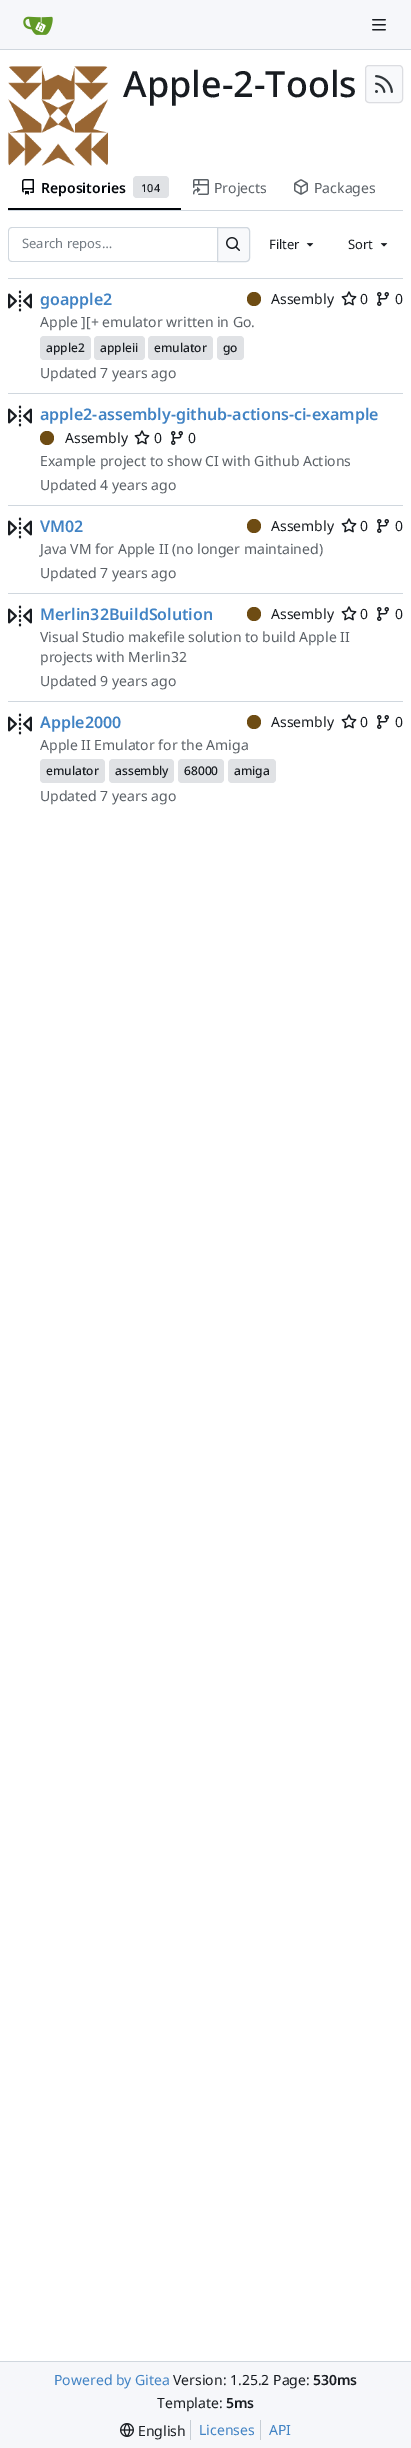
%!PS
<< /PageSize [411 2448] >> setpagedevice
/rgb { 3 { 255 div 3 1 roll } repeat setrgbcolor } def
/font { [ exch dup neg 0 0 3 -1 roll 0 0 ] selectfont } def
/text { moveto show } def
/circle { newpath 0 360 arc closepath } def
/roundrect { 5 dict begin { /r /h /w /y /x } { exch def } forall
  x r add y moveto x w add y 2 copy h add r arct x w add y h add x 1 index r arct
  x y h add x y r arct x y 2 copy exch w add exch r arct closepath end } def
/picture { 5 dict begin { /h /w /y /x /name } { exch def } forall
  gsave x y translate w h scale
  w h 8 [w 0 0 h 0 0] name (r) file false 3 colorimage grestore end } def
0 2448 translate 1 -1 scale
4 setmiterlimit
255 255 255 rgb
0 0 411 2448 rectfill
246 247 250 rgb
0 0 411 49 rectfill
208 215 222 rgb
0 49 411 1 rectfill
(img_01.rgb) 23 16 30 19 picture
(img_02.rgb) 372 19 14 12 picture
(img_03.rgb) 8 66 100 100 picture
248 249 251 rgb
365.5 65.5 37 37 3.5 roundrect gsave fill grestore
220 221 225 rgb
stroke
(img_04.rgb) 375 75 18 18 picture
208 215 222 rgb
8 210 395 1 rectfill
1 5 10 rgb
8 208 173 2 rectfill
(img_05.rgb) 22 179 12 16 picture
224 226 229 rgb
133 176 36 22 4 roundrect fill
(img_06.rgb) 193 179 16 16 picture
(img_07.rgb) 294 179 14 16 picture
208 215 222 rgb
12 227 moveto 205 0 rlineto 0 35 rlineto -205 0 rlineto -2 0 -4 -2 -4 -4 rcurveto 0 -27 rlineto 0 -2 2 -4 4 -4 rcurveto closepath 12 228 moveto 205 0 rlineto 0 33 rlineto -205 0 rlineto -2 0 -3 -1 -3 -3 rcurveto 0 -27 rlineto 0 -2 1 -3 3 -3 rcurveto closepath eofill
248 249 251 rgb
217.5 227.5 moveto 28.5 0 rlineto 2 0 3.5 1.5 3.5 3.5 rcurveto 0 27 rlineto 0 2 -1.5 3.5 -3.5 3.5 rcurveto -28.5 0 rlineto closepath gsave fill grestore
208 215 222 rgb
stroke
(img_08.rgb) 226 237 14 14 picture
(img_09.rgb) 306 243 8 4 picture
(img_09.rgb) 380 243 8 4 picture
8 278 395 1 rectfill
(img_10.rgb) 8 290 24 22 picture
110 76 19 rgb
254 299 7 circle fill
(img_11.rgb) 341 291 16 15 picture
(img_12.rgb) 377 292 12 14 picture
224 226 229 rgb
40 336 51 24 4 roundrect fill
94 336 51 24 4 roundrect fill
148 336 65 24 4 roundrect fill
217 336 27 24 4 roundrect fill
208 215 222 rgb
8 393 395 1 rectfill
(img_10.rgb) 8 405 24 22 picture
110 76 19 rgb
47 438 7 circle fill
(img_11.rgb) 134 430 16 15 picture
(img_12.rgb) 171 431 12 14 picture
208 215 222 rgb
8 505 395 1 rectfill
(img_10.rgb) 8 517 24 22 picture
110 76 19 rgb
254 526 7 circle fill
(img_11.rgb) 341 518 16 15 picture
(img_12.rgb) 377 519 12 14 picture
208 215 222 rgb
8 593 395 1 rectfill
(img_10.rgb) 8 605 24 22 picture
110 76 19 rgb
254 614 7 circle fill
(img_11.rgb) 341 606 16 15 picture
(img_12.rgb) 377 607 12 14 picture
208 215 222 rgb
8 701 395 1 rectfill
(img_10.rgb) 8 713 24 22 picture
110 76 19 rgb
254 722 7 circle fill
(img_11.rgb) 341 714 16 15 picture
(img_12.rgb) 377 715 12 14 picture
224 226 229 rgb
40 759 65 24 4 roundrect fill
109 759 65 24 4 roundrect fill
178 759 46 24 4 roundrect fill
228 759 48 24 4 roundrect fill
246 247 250 rgb
0 2362 411 86 rectfill
208 215 222 rgb
0 2361 411 1 rectfill
(img_13.rgb) 120 2423 14 14 picture
199 206 213 rgb
190 2420 1 20 rectfill
260 2420 1 20 rectfill
/NotoSans-Medium 36 font
24 28 33 rgb
(Apple-2-Tools) 123 97 text
/NotoSans-SemiBold 14 font
1 5 10 rgb
(Repositories) 41 193 text
/NotoSans-Medium 11 font
24 28 33 rgb
(104) 141 192 text
/NotoSans-Regular 14 font
91 97 103 rgb
(Projects) 214 193 text
(Packages) 314 193 text
/NotoSans-Regular 13 font
116 124 132 rgb
(Search repos…) 22 248 text
24 28 33 rgb
(Filter) 269 249 text
(Sort) 348 249 text
/NotoSans-SemiBold 16 font
65 131 196 rgb
(goapple2) 40 305 text
/NotoSans-Regular 14 font
24 28 33 rgb
(Assembly) 271 304 text
(0) 360 304 text
(0) 395 304 text
91 97 103 rgb
(Apple ][+ emulator written in Go.) 40 327 text
/NotoSans-Medium 12 font
24 28 33 rgb
(apple2) 46 352 text
(appleii) 100 352 text
(emulator) 154 352 text
(go) 223 352 text
/NotoSans-Regular 14 font
91 97 103 rgb
(Updated 7 years ago) 40 378 text
/NotoSans-SemiBold 16 font
65 131 196 rgb
(apple2-assembly-github-actions-ci-example) 40 420 text
/NotoSans-Regular 14 font
24 28 33 rgb
(Assembly) 65 443 text
(0) 154 443 text
(0) 188 443 text
91 97 103 rgb
(Example project to show CI with Github Actions) 40 466 text
(Updated 4 years ago) 40 490 text
/NotoSans-SemiBold 16 font
65 131 196 rgb
(VM02) 40 532 text
/NotoSans-Regular 14 font
24 28 33 rgb
(Assembly) 271 531 text
(0) 360 531 text
(0) 395 531 text
91 97 103 rgb
(Java VM for Apple II \(no longer maintained\)) 40 554 text
(Updated 7 years ago) 40 578 text
/NotoSans-SemiBold 16 font
65 131 196 rgb
(Merlin32BuildSolution) 40 620 text
/NotoSans-Regular 14 font
24 28 33 rgb
(Assembly) 271 619 text
(0) 360 619 text
(0) 395 619 text
91 97 103 rgb
(Visual Studio makefile solution to build Apple II) 40 642 text
(projects with Merlin32) 40 662 text
(Updated 9 years ago) 40 686 text
/NotoSans-SemiBold 16 font
65 131 196 rgb
(Apple2000) 40 728 text
/NotoSans-Regular 14 font
24 28 33 rgb
(Assembly) 271 727 text
(0) 360 727 text
(0) 395 727 text
91 97 103 rgb
(Apple II Emulator for the Amiga) 40 750 text
/NotoSans-Medium 12 font
24 28 33 rgb
(emulator) 46 775 text
(assembly) 115 775 text
(68000) 184 775 text
(amiga) 234 775 text
/NotoSans-Regular 14 font
91 97 103 rgb
(Updated 7 years ago) 40 801 text
65 131 196 rgb
(Powered by Gitea) 54 2385 text
24 28 33 rgb
(Version: 1.25.2 Page:) 173 2385 text
/NotoSans-SemiBold 14 font
(530ms) 313 2385 text
/NotoSans-Regular 14 font
(Template:) 157 2408 text
/NotoSans-SemiBold 14 font
(5ms) 226 2408 text
/NotoSans-Regular 14 font
(English) 138 2436 text
65 131 196 rgb
(Licenses) 199 2435 text
(API) 269 2435 text
showpage
